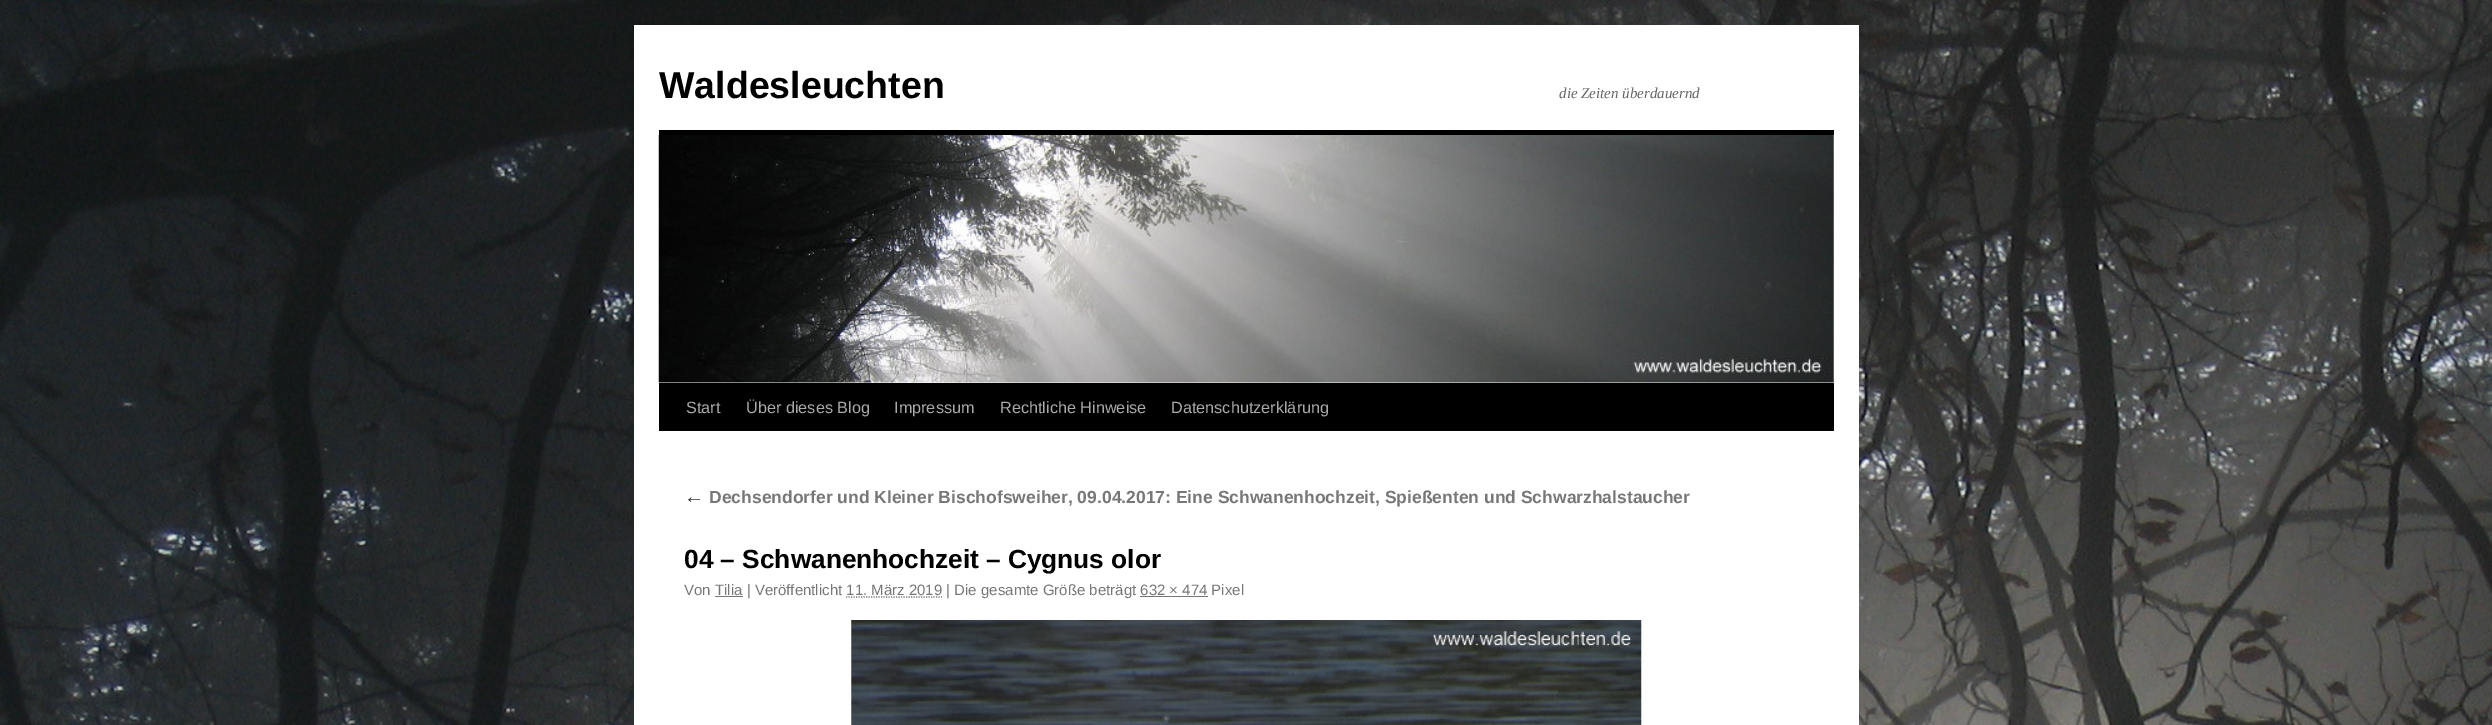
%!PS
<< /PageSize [2492 725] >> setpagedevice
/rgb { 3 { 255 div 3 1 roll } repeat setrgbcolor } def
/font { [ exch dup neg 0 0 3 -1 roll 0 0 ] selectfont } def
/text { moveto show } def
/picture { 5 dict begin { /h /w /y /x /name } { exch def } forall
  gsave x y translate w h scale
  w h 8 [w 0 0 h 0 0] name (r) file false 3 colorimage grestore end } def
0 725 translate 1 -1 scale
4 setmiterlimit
255 255 255 rgb
0 0 2492 725 rectfill
(img_01.rgb) 0 0 2492 725 picture
634 25 1225 700 rectfill
0 0 0 rgb
659 130 1175 5 rectfill
659 383 1175 48 rectfill
(img_02.rgb) 658 135 1176 248 picture
119 119 119 rgb
715 596 28 1 rectfill
1.2 setlinewidth
[1.25 1.25] 0 setdash
846 597 moveto 96 0 rlineto stroke
1140 596 68 1 rectfill
(img_03.rgb) 851 620 791 105 picture
/LiberationSans-Bold 37.5 font
0 0 0 rgb
(Waldesleuchten) 659 98 text
/LiberationSerif-Italic 15 font
102 102 102 rgb
(die Zeiten überdauernd) 1559 98 text
/LiberationSans-Regular 16.25 font
170 170 170 rgb
(Start) 686 413 text
(Über dieses Blog) 746 413 text
(Impressum) 894 413 text
(Rechtliche Hinweise) 1000 413 text
(Datenschutzerklärung) 1171 413 text
/LiberationSerif-Italic 20 font
51 51 51 rgb
(←) 684 503 text
/LiberationSans-Bold 17.5 font
119 119 119 rgb
(Dechsendorfer und Kleiner Bischofsweiher, 09.04.2017: Eine Schwanenhochzeit, Spießenten und Schwarzhalstaucher) 709 503 text
/LiberationSans-Bold 26.25 font
0 0 0 rgb
(04 – Schwanenhochzeit – Cygnus olor) 684 568 text
/LiberationSans-Regular 15 font
119 119 119 rgb
(Von Tilia | Veröffentlicht 11. März 2019 | Die gesamte Größe beträgt 632 × 474 Pixel) 684 595 text
showpage
